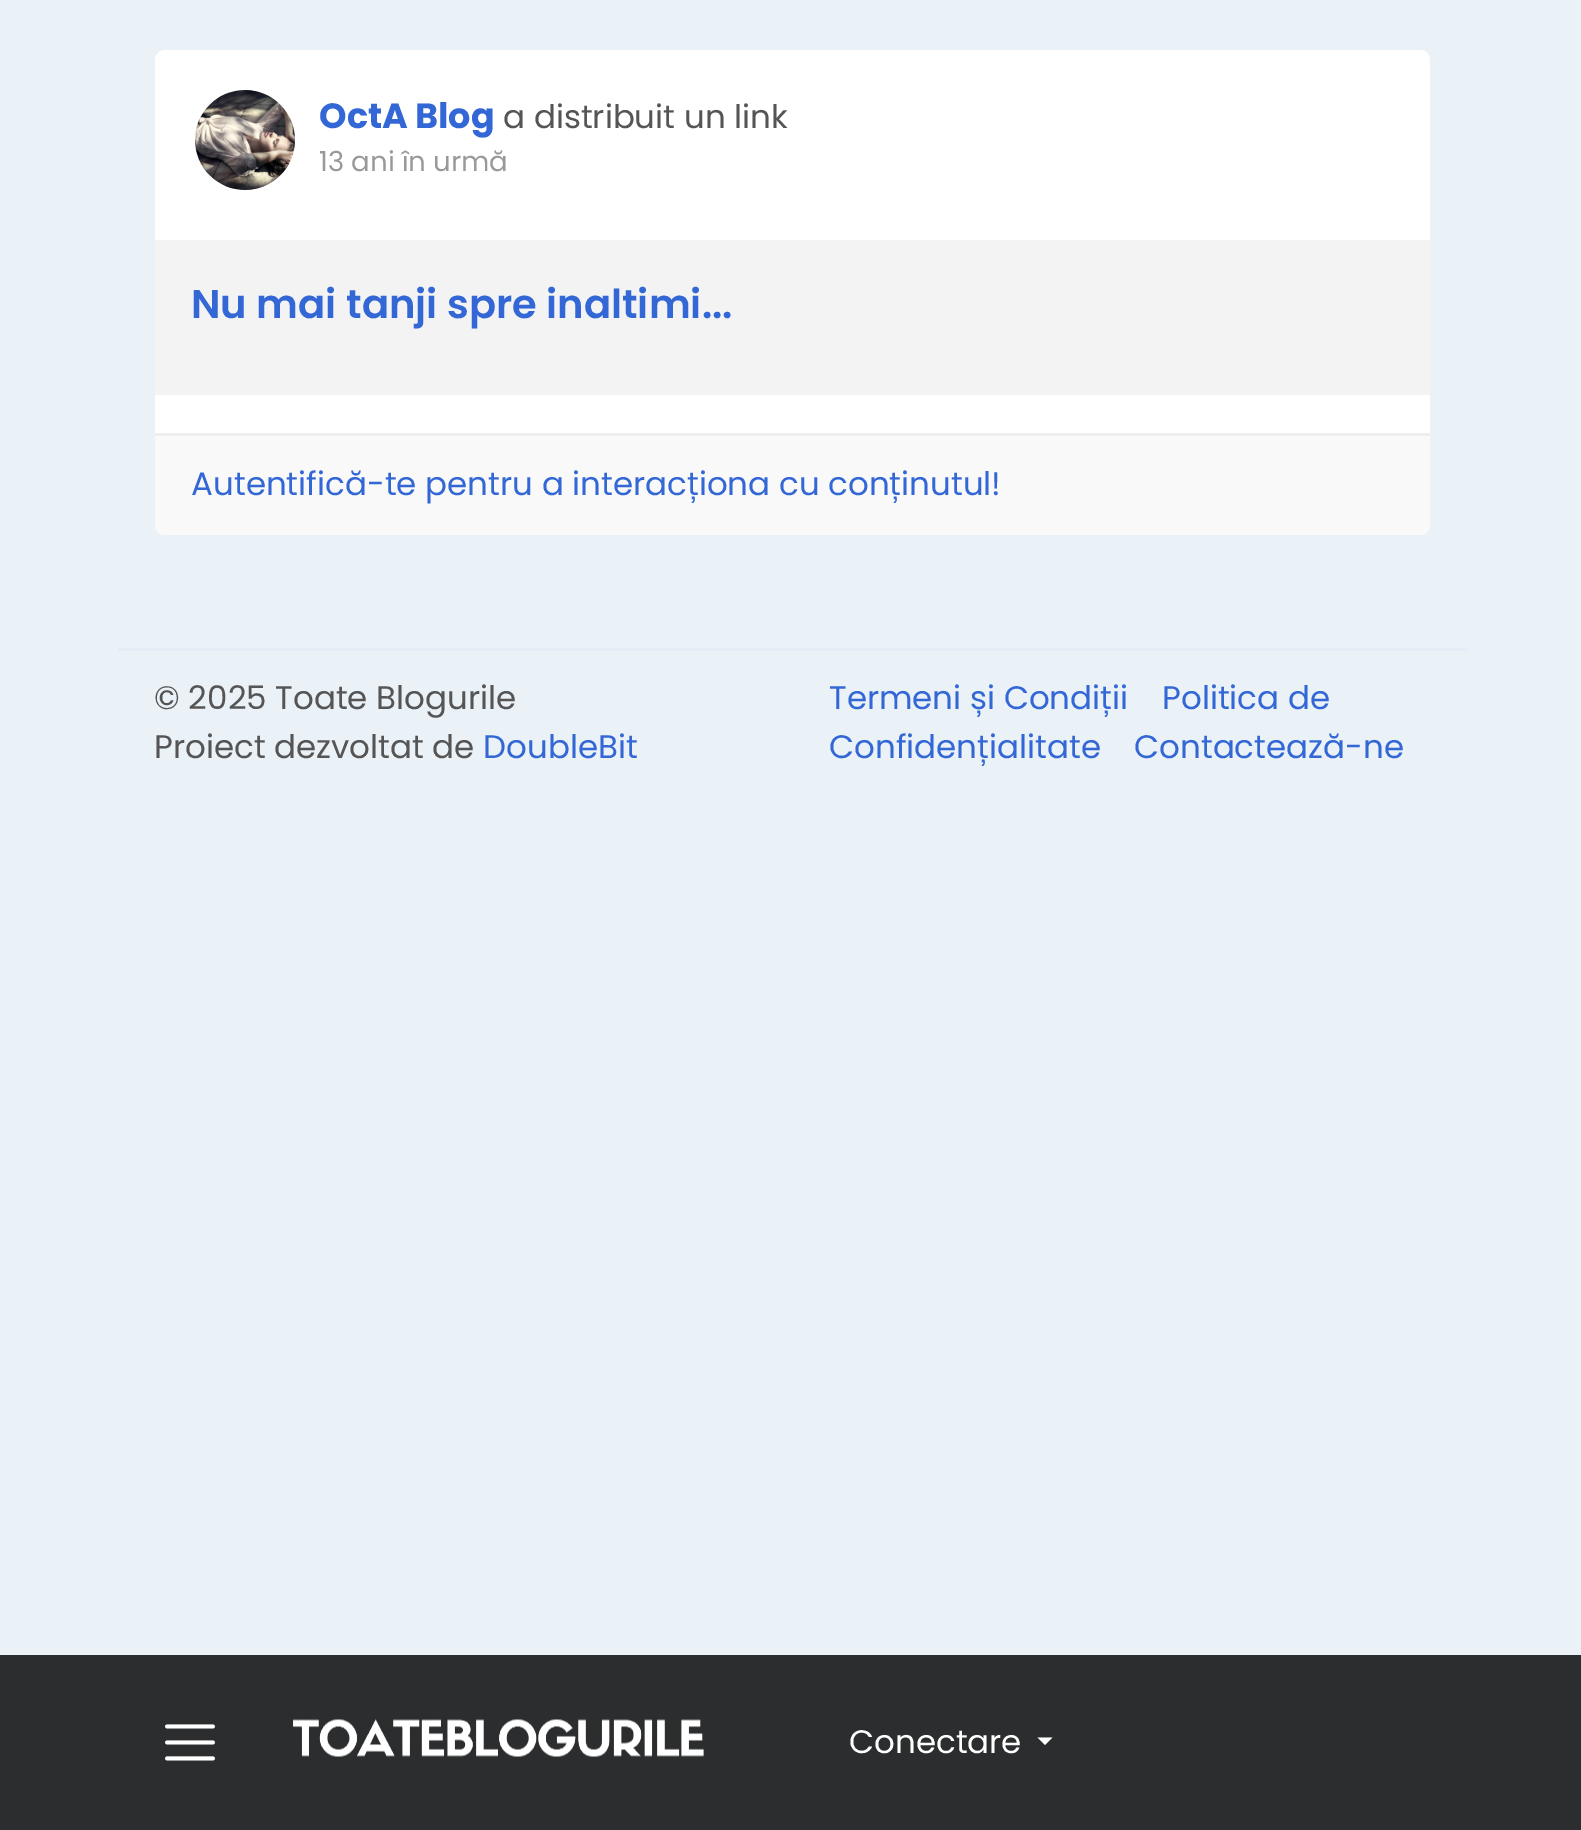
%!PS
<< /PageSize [1581 1830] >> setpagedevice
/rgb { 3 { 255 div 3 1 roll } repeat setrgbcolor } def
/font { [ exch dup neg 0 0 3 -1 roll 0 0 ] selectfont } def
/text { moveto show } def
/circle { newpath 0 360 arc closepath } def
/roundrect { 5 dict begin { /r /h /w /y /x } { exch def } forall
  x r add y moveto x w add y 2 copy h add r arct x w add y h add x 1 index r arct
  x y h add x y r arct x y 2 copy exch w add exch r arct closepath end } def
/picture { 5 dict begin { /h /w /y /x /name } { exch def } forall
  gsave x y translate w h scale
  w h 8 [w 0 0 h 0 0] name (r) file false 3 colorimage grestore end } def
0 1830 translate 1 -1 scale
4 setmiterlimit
234 241 247 rgb
0 0 1581 1830 rectfill
255 255 255 rgb
155 50 1275 485 10 roundrect fill
238 238 238 rgb
245 140 50 circle fill
(img_01.rgb) 195 90 100 100 picture
243 243 243 rgb
155 240 1275 155 rectfill
249 249 249 rgb
155 433 moveto 1275 0 rlineto 0 92 rlineto 0 5.5 -4.5 10 -10 10 rcurveto -1255 0 rlineto -5.5 0 -10 -4.5 -10 -10 rcurveto closepath fill
238 238 238 rgb
155 433 1275 3 rectfill
230 236 245 rgb
118 648 1350 3 rectfill
44 45 46 rgb
0 1655 1581 175 rectfill
(img_02.rgb) 165 1724 50 37 picture
(img_03.rgb) 293 1719 411 39 picture
255 255 255 rgb
1037.5 1737.5 moveto 15 0 rlineto -7.5 7.5 rlineto closepath fill
/Poppins-Bold 35 font
51 103 214 rgb
(OctA Blog) 319 128 text
/Poppins-Regular 32.5 font
85 85 85 rgb
(a distribuit un link) 503 128 text
/Poppins-Regular 27.5 font
153 153 153 rgb
(13 ani în urmă) 319 171 text
/Poppins-SemiBold 40 font
51 103 214 rgb
(Nu mai tanji spre inaltimi...) 191 318 text
/Poppins-Regular 32.5 font
(Autentifică-te pentru a interacționa cu conținutul!) 191 495 text
85 85 85 rgb
(© 2025 Toate Blogurile) 154 709 text
(Proiect dezvoltat de) 154 758 text
51 103 214 rgb
(DoubleBit) 483 758 text
(Termeni și Condiții) 829 709 text
(Politica de) 1162 709 text
(Confidențialitate) 829 758 text
(Contactează-ne) 1134 758 text
255 255 255 rgb
(Conectare) 849 1753 text
showpage
